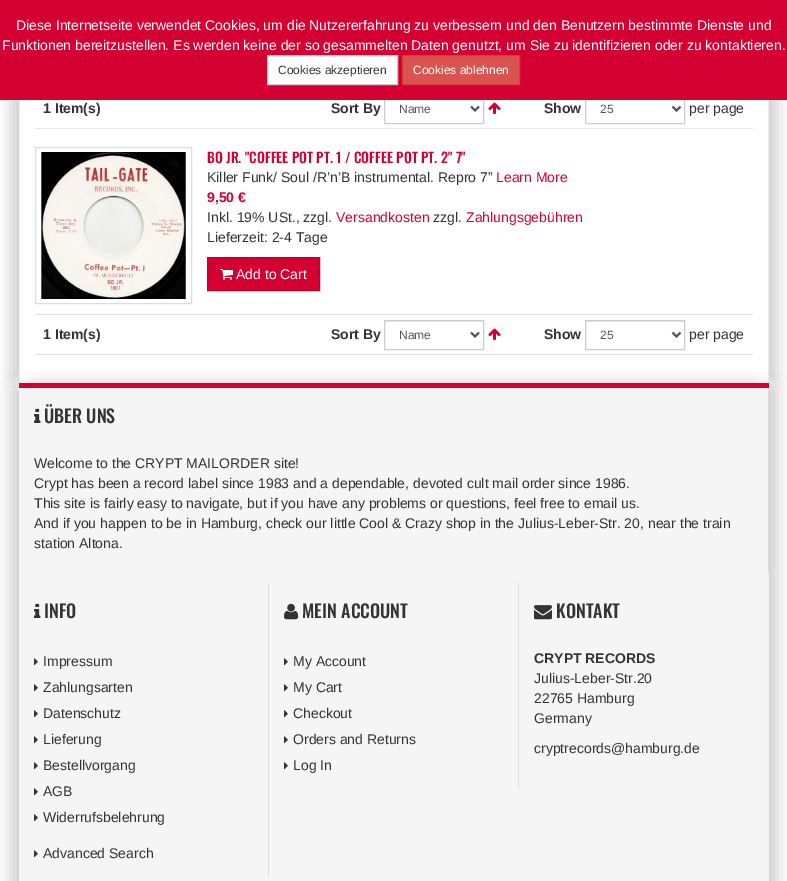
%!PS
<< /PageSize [787 881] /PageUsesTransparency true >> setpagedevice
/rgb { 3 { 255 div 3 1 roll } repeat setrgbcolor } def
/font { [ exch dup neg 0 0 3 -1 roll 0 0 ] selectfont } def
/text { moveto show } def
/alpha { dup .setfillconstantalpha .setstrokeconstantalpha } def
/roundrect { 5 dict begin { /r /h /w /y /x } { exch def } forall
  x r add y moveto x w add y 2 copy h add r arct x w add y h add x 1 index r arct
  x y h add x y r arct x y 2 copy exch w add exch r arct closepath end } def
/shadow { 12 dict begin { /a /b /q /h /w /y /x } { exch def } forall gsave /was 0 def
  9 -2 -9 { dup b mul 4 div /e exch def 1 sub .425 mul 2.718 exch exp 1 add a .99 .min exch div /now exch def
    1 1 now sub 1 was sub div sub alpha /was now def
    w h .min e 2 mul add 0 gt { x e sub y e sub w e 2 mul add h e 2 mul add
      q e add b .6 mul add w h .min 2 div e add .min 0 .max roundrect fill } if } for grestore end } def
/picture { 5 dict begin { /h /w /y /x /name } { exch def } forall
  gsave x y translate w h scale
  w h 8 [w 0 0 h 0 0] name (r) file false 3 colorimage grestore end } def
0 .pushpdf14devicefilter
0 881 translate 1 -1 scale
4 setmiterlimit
255 255 255 rgb
0 0 787 881 rectfill
gsave
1 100 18 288 rectclip
11 11 11 rgb
11 -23 742 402 0 7.5 0.2 shadow
grestore
gsave
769 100 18 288 rectclip
11 11 11 rgb
35 -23 742 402 0 7.5 0.2 shadow
grestore
204 204 204 rgb
384.5 94.5 99 29 rectstroke
585.5 94.5 99 29 rectstroke
212 0 50 rgb
0 0 787 100 rectfill
255 255 255 rgb
267.5 55.5 moveto 130 0 rlineto 0 29 rlineto -130 0 rlineto closepath gsave fill grestore
204 204 204 rgb
stroke
217 83 79 rgb
402.5 55.5 moveto 117 0 rlineto 0 29 rlineto -117 0 rlineto closepath gsave fill grestore
212 63 58 rgb
stroke
238 238 238 rgb
768 100 1 283 rectfill
19 100 1 283 rectfill
85 85 85 rgb
2 setlinewidth
471 106.5 moveto 4 4 rlineto 4 -4 rlineto stroke
(img_01.rgb) 488 102 13 12 picture
672.5 106.5 moveto 4 4 rlineto 4 -4 rlineto stroke
229 229 229 rgb
35 128 718 1 rectfill
221 221 221 rgb
1 setlinewidth
35.5 147.5 156 156 rectstroke
(img_02.rgb) 41 152 145 147 picture
212 0 50 rgb
207.5 257.5 moveto 112 0 rlineto 0 33 rlineto -112 0 rlineto closepath gsave fill grestore
187 0 44 rgb
stroke
(img_03.rgb) 220 269 13 11 picture
229 229 229 rgb
35 314 718 1 rectfill
236 236 236 rgb
385 321 98 1 rectfill
204 204 204 rgb
384.5 320.5 99 29 rectstroke
85 85 85 rgb
2 setlinewidth
471 332.5 moveto 4 4 rlineto 4 -4 rlineto stroke
(img_01.rgb) 488 328 13 12 picture
236 236 236 rgb
586 321 98 1 rectfill
204 204 204 rgb
1 setlinewidth
585.5 320.5 99 29 rectstroke
85 85 85 rgb
2 setlinewidth
672.5 332.5 moveto 4 4 rlineto 4 -4 rlineto stroke
229 229 229 rgb
35 354 718 1 rectfill
11 11 11 rgb
11 387 742 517 0 7.5 0.2 shadow
35 387 742 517 0 7.5 0.2 shadow
245 245 245 rgb
19 388 750 493 rectfill
212 0 50 rgb
19 383 750 5 rectfill
221 221 221 rgb
768 388 1 185 rectfill
(img_04.rgb) 34 408 7 15 picture
268 583 1 294 rectfill
(img_04.rgb) 34 603 7 15 picture
(img_05.rgb) 34 658 4 8 picture
(img_05.rgb) 34 684 4 8 picture
(img_05.rgb) 34 710 4 8 picture
(img_05.rgb) 34 736 4 8 picture
(img_05.rgb) 34 762 4 8 picture
(img_05.rgb) 34 788 4 8 picture
(img_05.rgb) 34 814 4 8 picture
(img_05.rgb) 34 850 4 8 picture
518 583 1 205 rectfill
(img_06.rgb) 284 603 15 17 picture
(img_05.rgb) 284 658 4 8 picture
(img_05.rgb) 284 684 4 8 picture
(img_05.rgb) 284 710 4 8 picture
(img_05.rgb) 284 736 4 8 picture
(img_05.rgb) 284 762 4 8 picture
(img_07.rgb) 534 605 18 15 picture
/LiberationSans-Regular 14 font
255 255 255 rgb
(Diese Internetseite verwendet Cookies, um die Nutzererfahrung zu verbessern und den Benutzern bestimmte Dienste und) 16 30 text
(Funktionen bereitzustellen. Es werden keine der so gesammelten Daten genutzt, um Sie zu identifizieren oder zu kontaktieren.) 2 50 text
/LiberationSans-Regular 12 font
51 51 51 rgb
(Cookies akzeptieren) 278 74 text
255 255 255 rgb
(Cookies ablehnen) 413 74 text
/LiberationSans-Bold 14 font
51 51 51 rgb
(1 Item\(s\)) 43 113 text
(Sort By) 331 113 text
/LiberationSans-Regular 12 font
85 85 85 rgb
(Name) 399 113 text
/LiberationSans-Bold 14 font
51 51 51 rgb
(Show) 544 113 text
/LiberationSans-Regular 12 font
85 85 85 rgb
(25) 600 113 text
/LiberationSans-Regular 14 font
51 51 51 rgb
(per page) 689 113 text
/Oswald-Medium 14 font
212 0 50 rgb
(BO JR. "COFFEE POT PT. 1 / COFFEE POT PT. 2" 7") 207 163 text
/LiberationSans-Regular 14 font
51 51 51 rgb
(Killer Funk/ Soul /R’n’B instrumental. Repro 7”) 207 182 text
212 0 50 rgb
(Learn More) 496 182 text
/LiberationSans-Bold 14 font
(9,50 €) 207 202 text
/LiberationSans-Regular 14 font
51 51 51 rgb
(Inkl. 19% USt., zzgl.) 207 222 text
212 0 50 rgb
(Versandkosten) 336 222 text
51 51 51 rgb
(zzgl.) 433 222 text
212 0 50 rgb
(Zahlungsgebühren) 466 222 text
51 51 51 rgb
(Lieferzeit: 2-4 Tage) 207 242 text
255 255 255 rgb
(Add to Cart) 236 279 text
/LiberationSans-Bold 14 font
51 51 51 rgb
(1 Item\(s\)) 43 339 text
(Sort By) 331 339 text
/LiberationSans-Regular 12 font
85 85 85 rgb
(Name) 399 339 text
/LiberationSans-Bold 14 font
51 51 51 rgb
(Show) 544 339 text
/LiberationSans-Regular 12 font
85 85 85 rgb
(25) 600 339 text
/LiberationSans-Regular 14 font
51 51 51 rgb
(per page) 689 339 text
/Oswald-Medium 18 font
(ÜBER UNS) 44 423 text
/LiberationSans-Regular 14 font
(Welcome to the CRYPT MAILORDER site!) 34 468 text
(Crypt has been a record label since 1983 and a dependable, devoted cult mail order since 1986.) 34 488 text
(This site is fairly easy to navigate, but if you have any problems or questions, feel free to email us.) 34 508 text
(And if you happen to be in Hamburg, check our little Cool & Crazy shop in the Julius-Leber-Str. 20, near the train) 34 528 text
(station Altona.) 34 548 text
/Oswald-Medium 18 font
(INFO) 44 618 text
/LiberationSans-Regular 14 font
(Impressum) 43 666 text
(Zahlungsarten) 43 692 text
(Datenschutz) 43 718 text
(Lieferung) 43 744 text
(Bestellvorgang) 43 770 text
(AGB) 43 796 text
(Widerrufsbelehrung) 43 822 text
(Advanced Search) 43 858 text
/Oswald-Medium 18 font
(MEIN ACCOUNT) 302 618 text
/LiberationSans-Regular 14 font
(My Account) 293 666 text
(My Cart) 293 692 text
(Checkout) 293 718 text
(Orders and Returns) 293 744 text
(Log In) 293 770 text
/Oswald-Medium 18 font
(KONTAKT) 556 618 text
/LiberationSans-Bold 14 font
(CRYPT RECORDS) 534 663 text
/LiberationSans-Regular 14 font
(Julius-Leber-Str.20) 534 683 text
(22765 Hamburg) 534 703 text
(Germany) 534 723 text
(cryptrecords@hamburg.de) 534 753 text
.poppdf14devicefilter showpage
